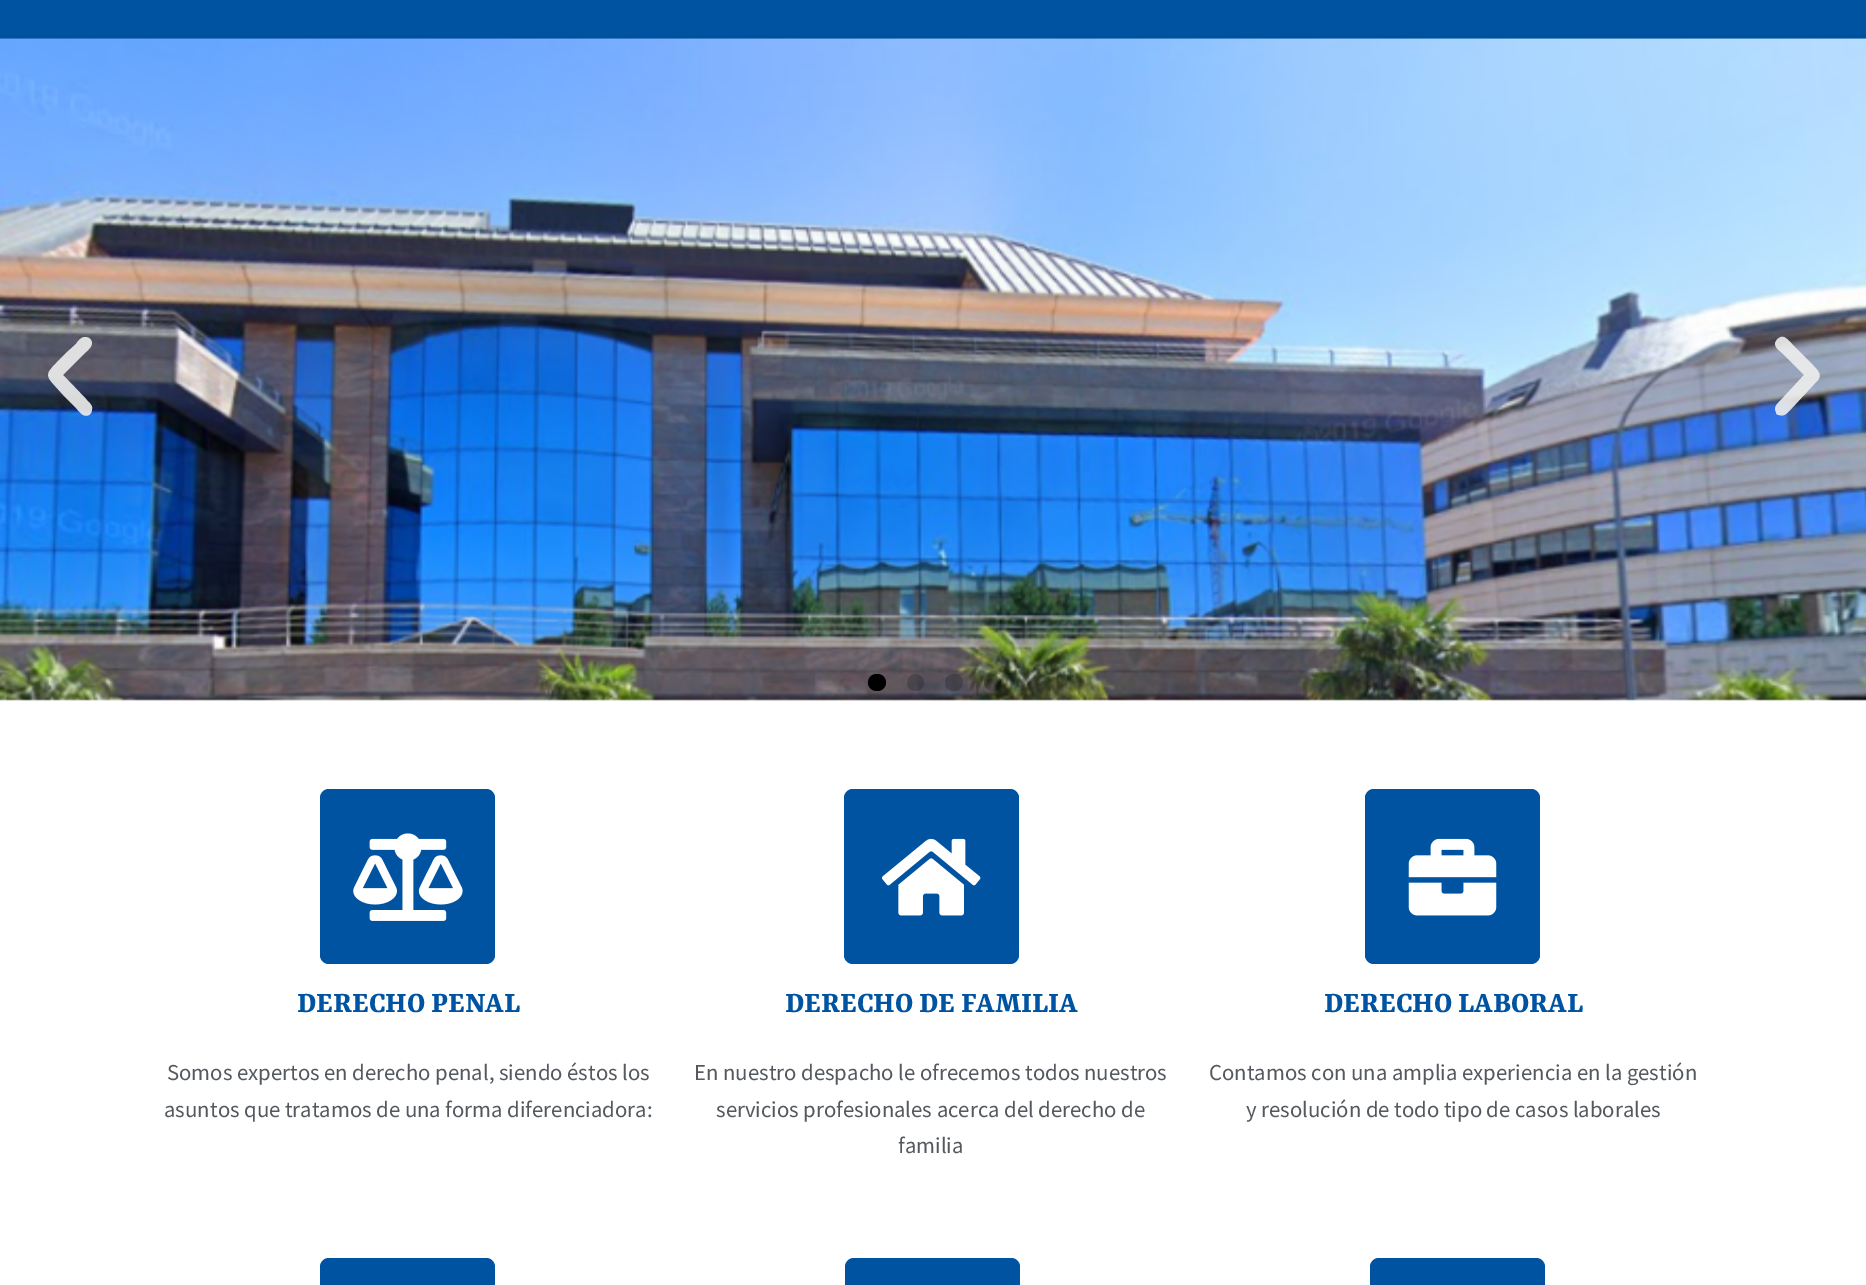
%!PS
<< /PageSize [1866 1285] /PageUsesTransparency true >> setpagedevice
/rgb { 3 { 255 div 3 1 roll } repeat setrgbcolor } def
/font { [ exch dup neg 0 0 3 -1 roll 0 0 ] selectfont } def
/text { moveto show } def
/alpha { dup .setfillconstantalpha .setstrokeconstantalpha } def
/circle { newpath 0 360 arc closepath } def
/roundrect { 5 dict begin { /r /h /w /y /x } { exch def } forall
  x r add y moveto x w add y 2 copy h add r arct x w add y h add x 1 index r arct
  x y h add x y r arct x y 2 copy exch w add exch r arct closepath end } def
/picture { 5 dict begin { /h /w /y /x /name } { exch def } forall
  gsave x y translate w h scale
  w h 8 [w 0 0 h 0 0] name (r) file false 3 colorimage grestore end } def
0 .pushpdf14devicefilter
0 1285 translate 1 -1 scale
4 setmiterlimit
0 83 160 rgb
0 0 1866 1285 rectfill
0 81 155 rgb
0 35 1866 4 rectfill
255 255 255 rgb
0 699 1866 586 rectfill
(img_01.rgb) 0 38 1866 663 picture
0.9 alpha
238 238 238 rgb
85 337 moveto -4 0 -7 4 -9 7 rcurveto -11 10 rlineto -23 24 -22 18 0 43 rcurveto 11 11 rlineto 3 3 7 10 13 7 rcurveto 2 -1 3 -4 3 -6 rcurveto 1 -4 -4 -7 -6 -10 rcurveto -23 -24 rlineto 23 -23 rlineto 3 -3 8 -7 5 -12 rcurveto -1 -2 -4 -3 -6 -3 rcurveto closepath fill
1818 380 moveto 5 -6 -2 -11 -5 -15 rcurveto -21 -21 rlineto -3 -3 -8 -10 -13 -6 rcurveto -2 1 -3 3 -4 5 rcurveto 0 5 4 7 7 10 rcurveto 22 22 rlineto -23 25 rlineto -3 3 -8 7 -5 12 rcurveto 0 2 1 3 3 3 rcurveto 6 2 9 -3 13 -7 rcurveto closepath fill
1 alpha
0 0 0 rgb
868 674 18 17 8.5 roundrect fill
0.2 alpha
915.5 682.5 8.5 circle fill
945 674 18 17 8.5 roundrect fill
992.5 682.5 8.5 circle fill
1 alpha
0 83 160 rgb
320 789 175 175 9 roundrect fill
(img_02.rgb) 353 833 110 88 picture
844 789 175 175 9 roundrect fill
(img_03.rgb) 882 838 99 78 picture
1365 789 175 175 9 roundrect fill
(img_04.rgb) 1408 838 89 78 picture
320 1258 175 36 9 roundrect fill
845 1258 175 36 9 roundrect fill
1370 1258 175 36 9 roundrect fill
/Yrsa-Bold 31.5 font
(DERECHO PENAL) 297 1012 text
/SourceSansPro-Regular 22.75 font
84 89 95 rgb
(Somos expertos en derecho penal, siendo éstos los) 167 1080 text
(asuntos que tratamos de una forma diferenciadora:) 164 1117 text
/Yrsa-Bold 31.5 font
0 83 160 rgb
(DERECHO DE FAMILIA) 785 1012 text
/SourceSansPro-Regular 22.75 font
84 89 95 rgb
(En nuestro despacho le ofrecemos todos nuestros) 694 1080 text
(servicios profesionales acerca del derecho de) 716 1117 text
(familia) 898 1153 text
/Yrsa-Bold 31.5 font
0 83 160 rgb
(DERECHO LABORAL) 1324 1012 text
/SourceSansPro-Regular 22.75 font
84 89 95 rgb
(Contamos con una amplia experiencia en la gestión) 1209 1080 text
(y resolución de todo tipo de casos laborales) 1246 1117 text
.poppdf14devicefilter showpage
